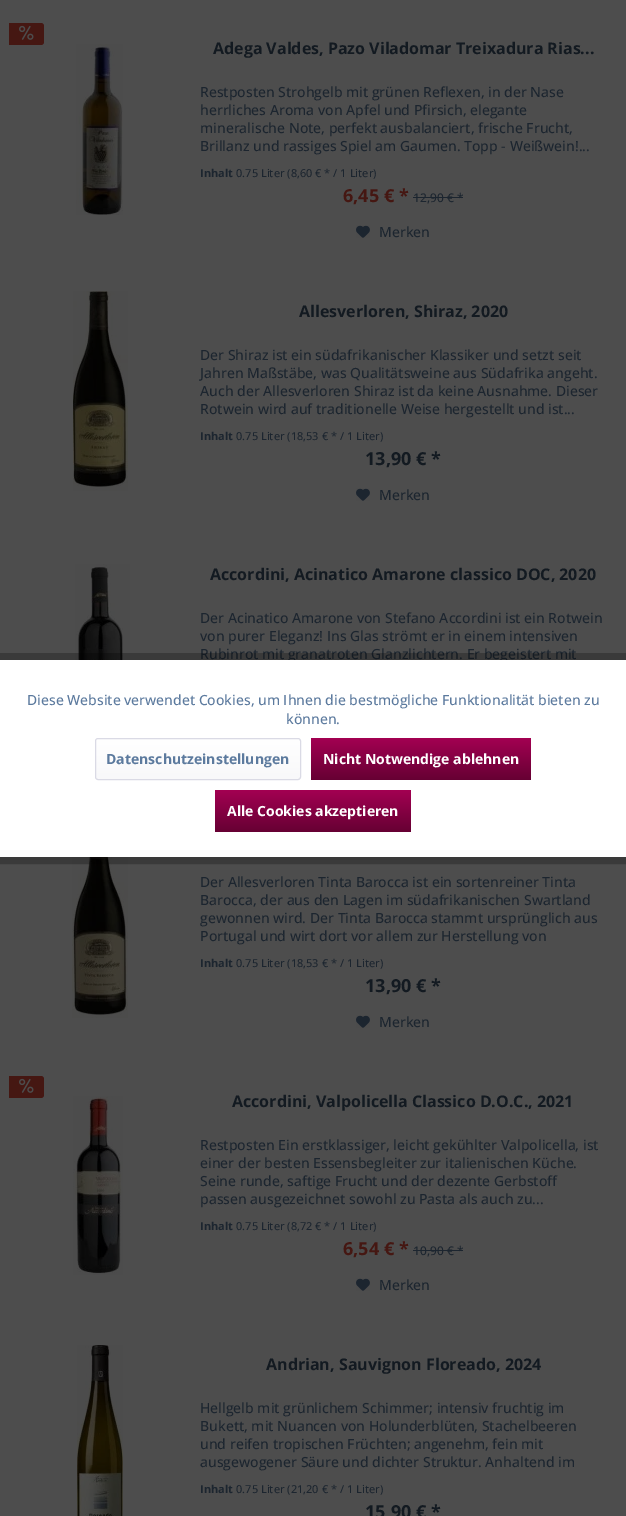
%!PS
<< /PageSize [626 1516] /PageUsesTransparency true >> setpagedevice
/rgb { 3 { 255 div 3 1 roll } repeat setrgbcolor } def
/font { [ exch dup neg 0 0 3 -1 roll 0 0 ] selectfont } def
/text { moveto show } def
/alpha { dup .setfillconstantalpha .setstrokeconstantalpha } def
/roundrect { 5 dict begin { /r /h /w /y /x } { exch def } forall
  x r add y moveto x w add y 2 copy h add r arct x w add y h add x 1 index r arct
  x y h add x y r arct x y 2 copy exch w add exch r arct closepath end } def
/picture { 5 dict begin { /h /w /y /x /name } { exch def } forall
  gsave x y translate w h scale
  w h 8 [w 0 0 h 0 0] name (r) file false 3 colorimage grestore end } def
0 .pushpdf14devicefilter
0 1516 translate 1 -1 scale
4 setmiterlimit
77 77 77 rgb
0 0 626 1516 rectfill
69 23 18 rgb
9 23 moveto 32 0 rlineto 1.5 0 3 1.5 3 3 rcurveto 0 16 rlineto 0 1.5 -1.5 3 -3 3 rcurveto -32 0 rlineto closepath fill
(img_01.rgb) 19 25 15 15 picture
(img_02.rgb) 76 44 47 171 picture
28 37 47 rgb
413 197 50 1 rectfill
(img_03.rgb) 356 225 14 13 picture
(img_04.rgb) 73 291 55 200 picture
(img_03.rgb) 356 488 14 13 picture
(img_05.rgb) 75 564 55 96 picture
(img_06.rgb) 72 857 56 161 picture
(img_03.rgb) 356 1015 14 13 picture
69 23 18 rgb
9 1076 moveto 32 0 rlineto 1.5 0 3 1.5 3 3 rcurveto 0 16 rlineto 0 1.5 -1.5 3 -3 3 rcurveto -32 0 rlineto closepath fill
(img_01.rgb) 19 1078 15 15 picture
(img_07.rgb) 73 1096 50 179 picture
28 37 47 rgb
413 1250 50 1 rectfill
(img_03.rgb) 356 1278 14 13 picture
(img_08.rgb) 77 1345 46 171 picture
/OpenSans-Bold 16 font
19 26 33 rgb
(Adega Valdes, Pazo Viladomar Treixadura Rias...) 213 54 text
/OpenSans-Medium 14 font
28 37 47 rgb
(Restposten Strohgelb mit grünen Reflexen, in der Nase) 200 97 text
(herrliches Aroma von Apfel und Pfirsich, elegante) 200 115 text
(mineralische Note, perfekt ausbalanciert, frische Frucht,) 200 133 text
(Brillanz und rassiges Spiel am Gaumen. Topp - Weißwein!...) 200 151 text
/OpenSans-Bold 11 font
(Inhalt) 200 177 text
/OpenSans-Medium 11 font
(0.75 Liter \(8,60 € * / 1 Liter\)) 236 177 text
/OpenSans-Bold 18 font
69 23 18 rgb
(6,45 € *) 343 202 text
/OpenSans-Medium 12 font
28 37 47 rgb
(12,90 € *) 413 202 text
/OpenSans-Medium 14 font
(Merken) 379 237 text
/OpenSans-Bold 16 font
19 26 33 rgb
(Allesverloren, Shiraz, 2020) 299 317 text
/OpenSans-Medium 14 font
28 37 47 rgb
(Der Shiraz ist ein südafrikanischer Klassiker und setzt seit) 200 360 text
(Jahren Maßstäbe, was Qualitätsweine aus Südafrika angeht.) 200 378 text
(Auch der Allesverloren Shiraz ist da keine Ausnahme. Dieser) 200 396 text
(Rotwein wird auf traditionelle Weise hergestellt und ist...) 200 414 text
/OpenSans-Bold 11 font
(Inhalt) 200 440 text
/OpenSans-Medium 11 font
(0.75 Liter \(18,53 € * / 1 Liter\)) 236 440 text
/OpenSans-Bold 18 font
19 26 33 rgb
(13,90 € *) 365 465 text
/OpenSans-Medium 14 font
28 37 47 rgb
(Merken) 379 500 text
/OpenSans-Bold 16 font
19 26 33 rgb
(Accordini, Acinatico Amarone classico DOC, 2020) 210 580 text
/OpenSans-Medium 14 font
28 37 47 rgb
(Der Acinatico Amarone von Stefano Accordini ist ein Rotwein) 200 623 text
(von purer Eleganz! Ins Glas strömt er in einem intensiven) 200 641 text
(Rubinrot mit granatroten Glanzlichtern. Er begeistert mit) 200 659 text
(Der Allesverloren Tinta Barocca ist ein sortenreiner Tinta) 200 887 text
(Barocca, der aus den Lagen im südafrikanischen Swartland) 200 905 text
(gewonnen wird. Der Tinta Barocca stammt ursprünglich aus) 200 923 text
(Portugal und wirt dort vor allem zur Herstellung von) 200 941 text
/OpenSans-Bold 11 font
(Inhalt) 200 967 text
/OpenSans-Medium 11 font
(0.75 Liter \(18,53 € * / 1 Liter\)) 236 967 text
/OpenSans-Bold 18 font
19 26 33 rgb
(13,90 € *) 365 992 text
/OpenSans-Medium 14 font
28 37 47 rgb
(Merken) 379 1027 text
/OpenSans-Bold 16 font
19 26 33 rgb
(Accordini, Valpolicella Classico D.O.C., 2021) 232 1107 text
/OpenSans-Medium 14 font
28 37 47 rgb
(Restposten Ein erstklassiger, leicht gekühlter Valpolicella, ist) 200 1150 text
(einer der besten Essensbegleiter zur italienischen Küche.) 200 1168 text
(Seine runde, saftige Frucht und der dezente Gerbstoff) 200 1186 text
(passen ausgezeichnet sowohl zu Pasta als auch zu...) 200 1204 text
/OpenSans-Bold 11 font
(Inhalt) 200 1230 text
/OpenSans-Medium 11 font
(0.75 Liter \(8,72 € * / 1 Liter\)) 236 1230 text
/OpenSans-Bold 18 font
69 23 18 rgb
(6,54 € *) 343 1255 text
/OpenSans-Medium 12 font
28 37 47 rgb
(10,90 € *) 413 1255 text
/OpenSans-Medium 14 font
(Merken) 379 1290 text
/OpenSans-Bold 16 font
19 26 33 rgb
(Andrian, Sauvignon Floreado, 2024) 266 1370 text
/OpenSans-Medium 14 font
28 37 47 rgb
(Hellgelb mit grünlichem Schimmer; intensiv fruchtig im) 200 1413 text
(Bukett, mit Nuancen von Holunderblüten, Stachelbeeren) 200 1431 text
(und reifen tropischen Früchten; angenehm, fein mit) 200 1449 text
(ausgewogener Säure und dichter Struktur. Anhaltend im) 200 1467 text
/OpenSans-Bold 11 font
(Inhalt) 200 1493 text
/OpenSans-Medium 11 font
(0.75 Liter \(21,20 € * / 1 Liter\)) 236 1493 text
/OpenSans-Bold 18 font
19 26 33 rgb
(15,90 € *) 365 1518 text
0.25 alpha
0 0 0 rgb
7 setlinewidth
-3.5 656.5 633 204 rectstroke
1 alpha
255 255 255 rgb
0 660 626 197 rectfill
/OpenSans-Medium 14 font
92 122 158 rgb
(Diese Website verwendet Cookies, um Ihnen die bestmögliche Funktionalität bieten zu) 27 705 text
(können.) 286 724 text
gsave 96 739 204 40 2 roundrect clip newpath
<< /ShadingType 2 /ColorSpace /DeviceRGB /Coords [198 739 198 779] /Extend [true true] /Function << /FunctionType 2 /Domain [0 1] /C0 [1 1 1] /C1 [0.973 0.973 0.98] /N 1 >> >> shfill grestore
218 218 229 rgb
1 setlinewidth
95.5 738.5 205 41 2.5 roundrect stroke
/OpenSans-Bold 14 font
92 122 158 rgb
(Datenschutzeinstellungen) 106 764 text
gsave 311 738 220 42 3 roundrect clip newpath
<< /ShadingType 2 /ColorSpace /DeviceRGB /Coords [421 738 421 780] /Extend [true true] /Function << /FunctionType 2 /Domain [0 1] /C0 [0.639 0 0.322] /C1 [0.4 0 0.2] /N 1 >> >> shfill grestore
255 255 255 rgb
(Nicht Notwendige ablehnen) 323 764 text
gsave 215 790 196 42 3 roundrect clip newpath
<< /ShadingType 2 /ColorSpace /DeviceRGB /Coords [313 790 313 832] /Extend [true true] /Function << /FunctionType 2 /Domain [0 1] /C0 [0.639 0 0.322] /C1 [0.4 0 0.2] /N 1 >> >> shfill grestore
(Alle Cookies akzeptieren) 227 816 text
.poppdf14devicefilter showpage
